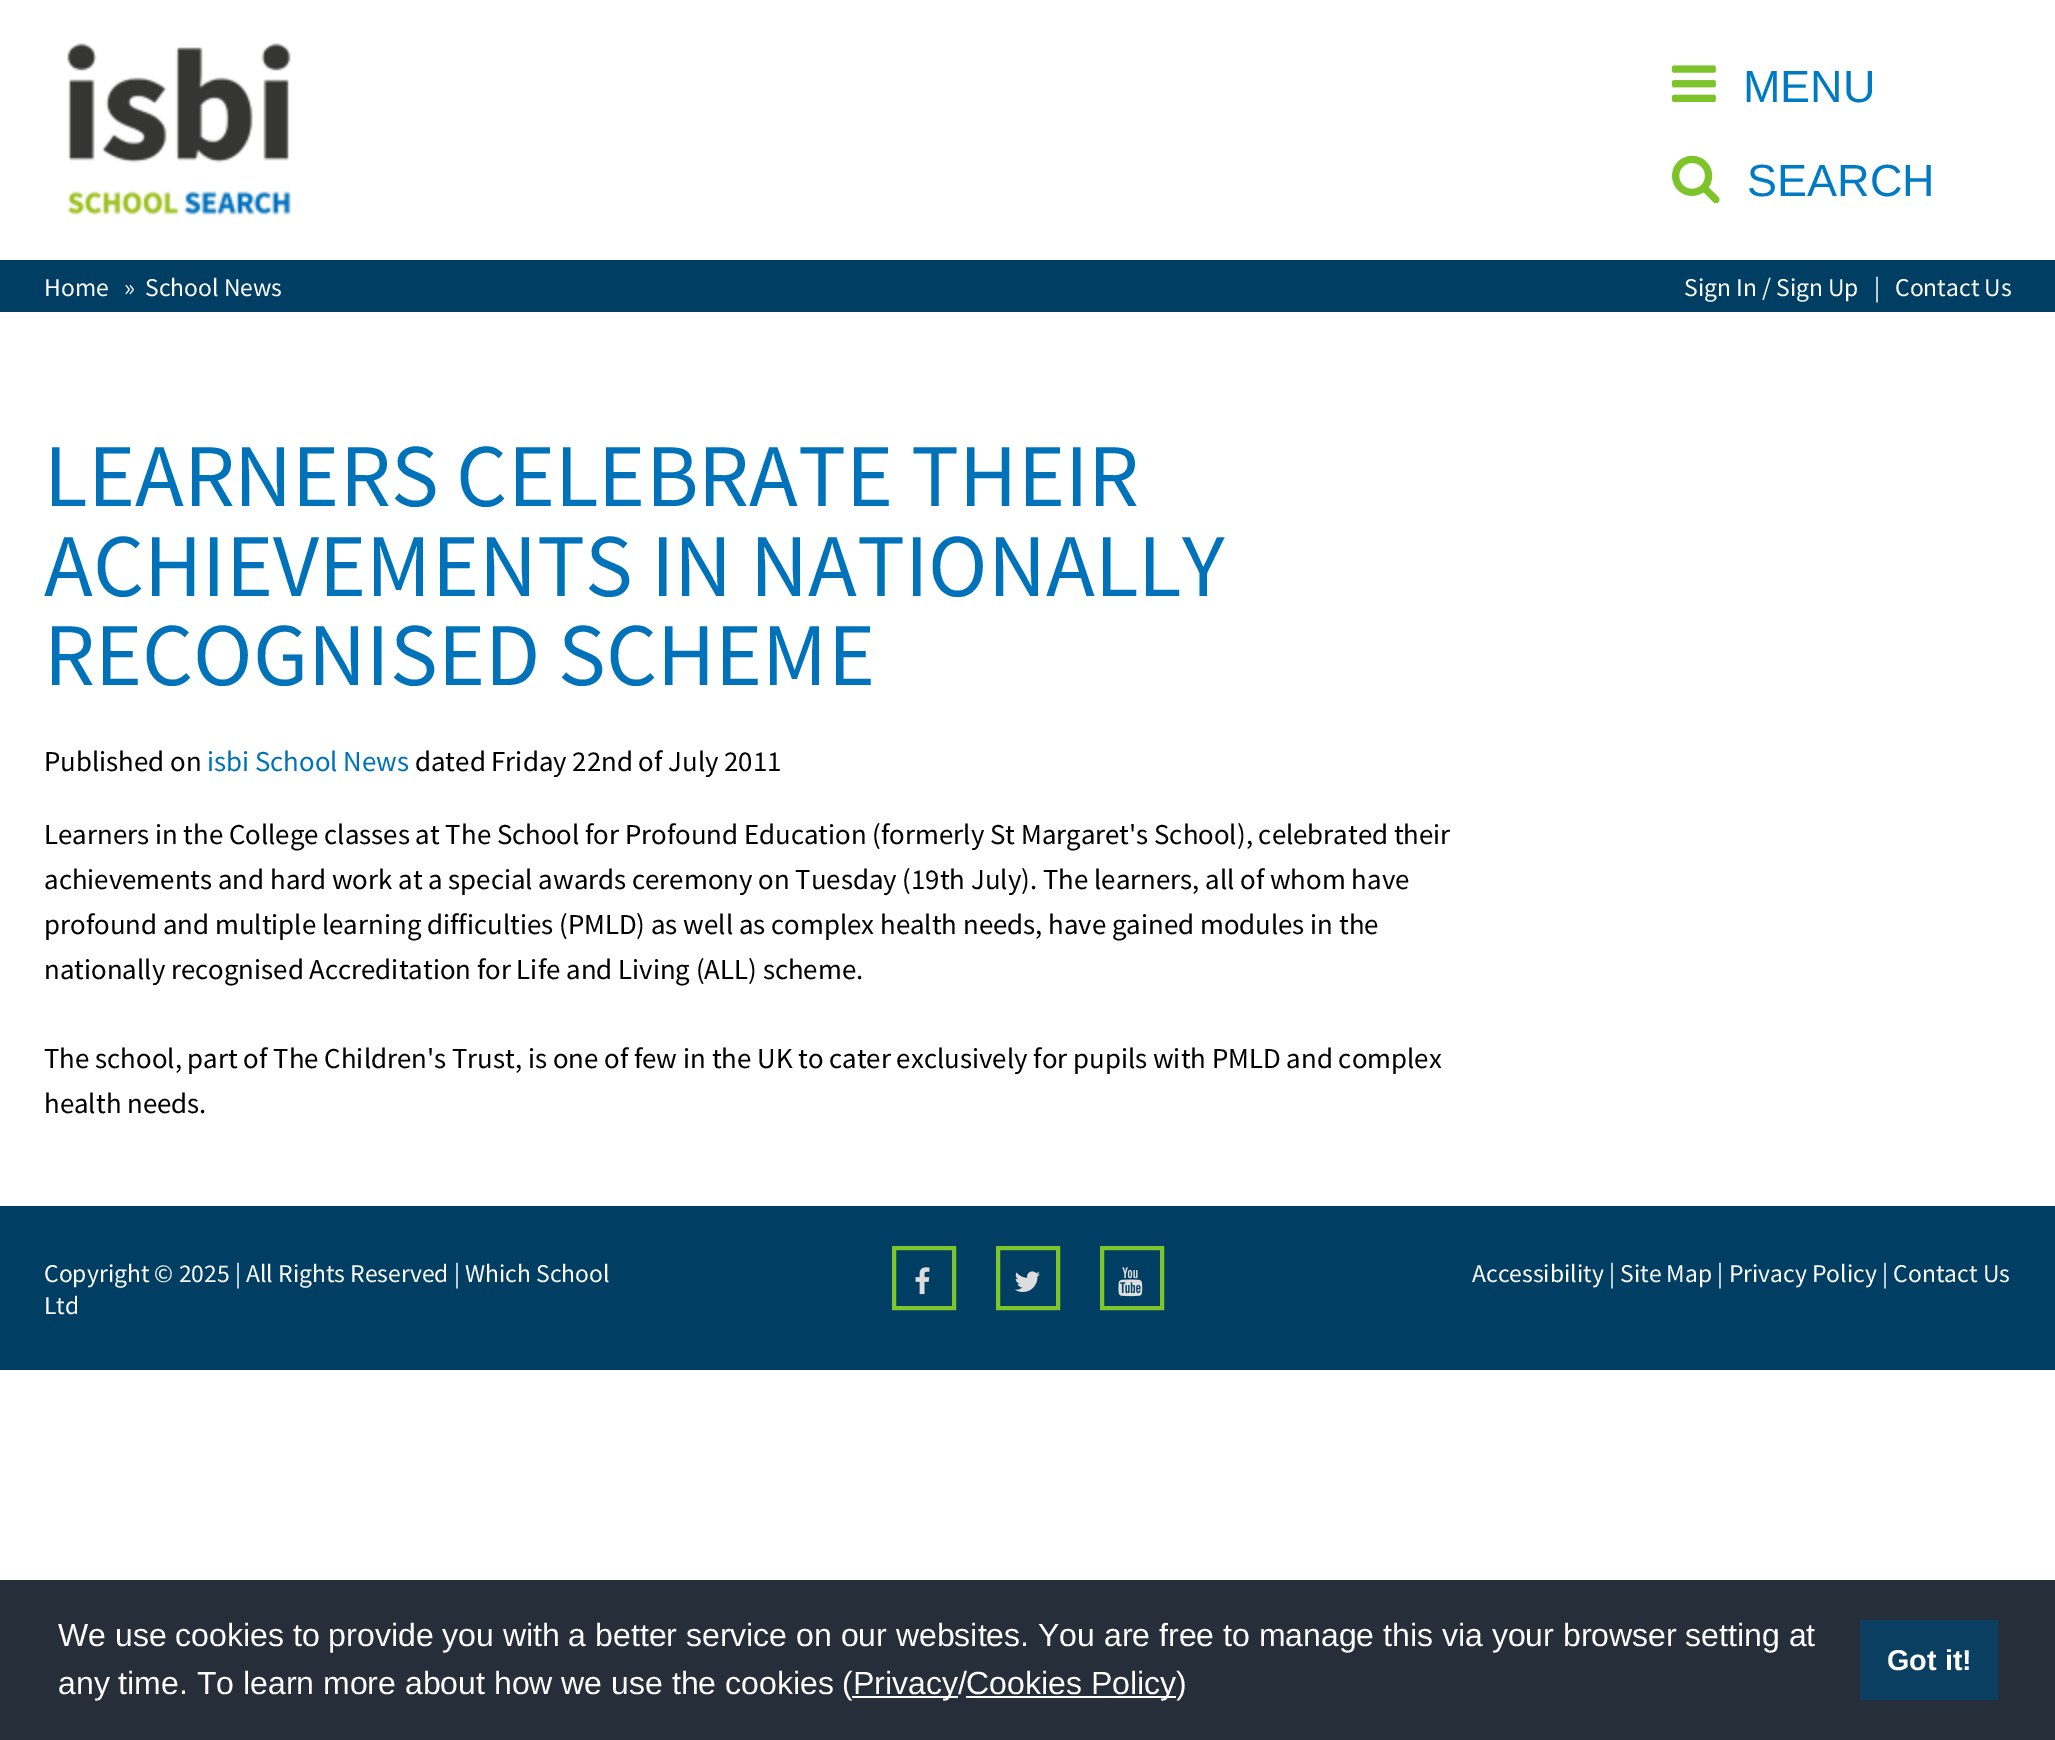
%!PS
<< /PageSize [2055 1740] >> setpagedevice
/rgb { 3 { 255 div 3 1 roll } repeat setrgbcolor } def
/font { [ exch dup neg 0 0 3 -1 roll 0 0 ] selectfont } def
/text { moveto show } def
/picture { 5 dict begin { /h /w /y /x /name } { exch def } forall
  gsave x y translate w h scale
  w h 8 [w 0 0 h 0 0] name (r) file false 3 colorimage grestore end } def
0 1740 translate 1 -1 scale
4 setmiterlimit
255 255 255 rgb
0 0 2055 1740 rectfill
(img_01.rgb) 67 43 224 172 picture
(img_02.rgb) 1672 65 44 37 picture
(img_03.rgb) 1672 155 48 49 picture
0 62 99 rgb
0 260 2055 52 rectfill
0 1206 2055 164 rectfill
126 196 43 rgb
4 setlinewidth
894 1248 60 60 rectstroke
(img_04.rgb) 915 1267 15 28 picture
998 1248 60 60 rectstroke
(img_05.rgb) 1014 1271 26 21 picture
1102 1248 60 60 rectstroke
(img_06.rgb) 1118 1267 25 30 picture
37 46 57 rgb
0 1580 2055 160 rectfill
255 255 255 rgb
852 1696 106 2 rectfill
966 1696 210 2 rectfill
10 63 97 rgb
1860 1620 138 80 rectfill
/LiberationSans-Regular 45 font
0 122 195 rgb
(MENU) 1743 102 text
(SEARCH) 1747 196 text
/SourceSansPro-Regular 25.6 font
255 255 255 rgb
(Home) 44 296 text
(») 124 296 text
(School News) 145 296 text
(Sign In / Sign Up) 1684 296 text
(|) 1874 296 text
(Contact Us) 1895 296 text
/SourceSansPro-Regular 89.6 font
0 114 186 rgb
(LEARNERS CELEBRATE THEIR) 44 506 text
(ACHIEVEMENTS IN NATIONALLY) 44 596 text
(RECOGNISED SCHEME) 44 685 text
/SourceSansPro-Regular 28.8 font
1 1 1 rgb
(Published on) 44 771 text
0 114 186 rgb
(isbi School News) 207 771 text
1 1 1 rgb
(dated Friday 22nd of July 2011) 415 771 text
(Learners in the College classes at The School for Profound Education \(formerly St Margaret's School\), celebrated their) 44 844 text
(achievements and hard work at a special awards ceremony on Tuesday \(19th July\). The learners, all of whom have) 44 889 text
(profound and multiple learning difficulties \(PMLD\) as well as complex health needs, have gained modules in the) 44 934 text
(nationally recognised Accreditation for Life and Living \(ALL\) scheme.) 44 979 text
(The school, part of The Children's Trust, is one of few in the UK to cater exclusively for pupils with PMLD and complex) 44 1068 text
(health needs.) 44 1113 text
/SourceSansPro-Regular 25.6 font
255 255 255 rgb
(Copyright © 2025 | All Rights Reserved | Which School) 44 1282 text
(Ltd) 44 1314 text
(Accessibility | Site Map | Privacy Policy | Contact Us) 1472 1282 text
/LiberationSans-Regular 32 font
(We use cookies to provide you with a better service on our websites. You are free to manage this via your browser setting at) 58 1646 text
(any time. To learn more about how we use the cookies \() 58 1694 text
(Privacy/) 853 1694 text
(Cookies Policy\)) 966 1694 text
/LiberationSans-Bold 28.8 font
(Got it!) 1887 1670 text
showpage
